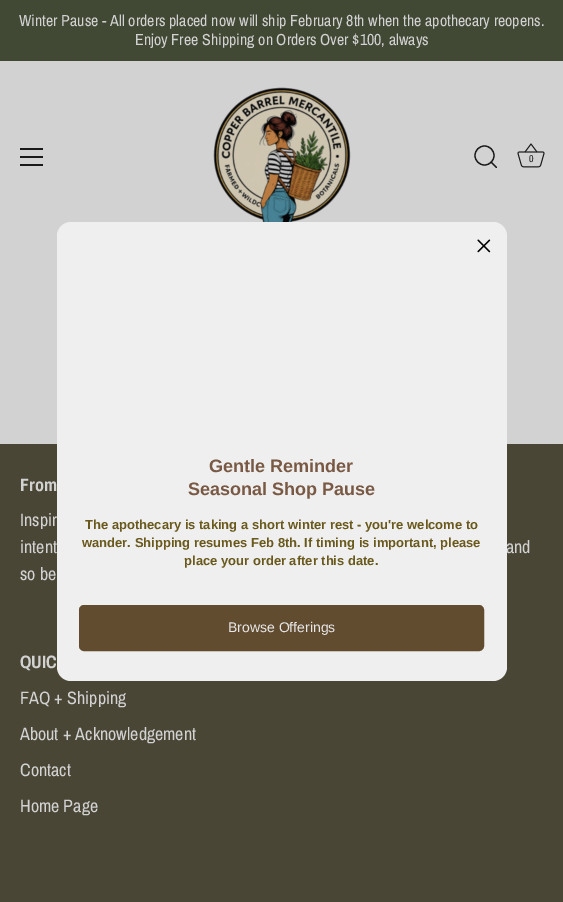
%!PS
<< /PageSize [563 902] >> setpagedevice
/rgb { 3 { 255 div 3 1 roll } repeat setrgbcolor } def
/font { [ exch dup neg 0 0 3 -1 roll 0 0 ] selectfont } def
/text { moveto show } def
/circle { newpath 0 360 arc closepath } def
/roundrect { 5 dict begin { /r /h /w /y /x } { exch def } forall
  x r add y moveto x w add y 2 copy h add r arct x w add y h add x 1 index r arct
  x y h add x y r arct x y 2 copy exch w add exch r arct closepath end } def
/picture { 5 dict begin { /h /w /y /x /name } { exch def } forall
  gsave x y translate w h scale
  w h 8 [w 0 0 h 0 0] name (r) file false 3 colorimage grestore end } def
0 902 translate 1 -1 scale
4 setmiterlimit
210 210 210 rgb
0 0 563 902 rectfill
65 73 53 rgb
0 0 563 61 rectfill
25 25 25 rgb
20 148 23 2 rectfill
20 156 23 2 rectfill
20 164 23 2 rectfill
(img_01.rgb) 213 87 138 135 picture
1.2 setlinewidth
484.5 155.5 9.5 circle stroke
1 setlinecap
1 setlinejoin
496.5 167.5 moveto -5.5 -5.5 rlineto stroke
(img_02.rgb) 517 143 28 25 picture
73 70 53 rgb
0 444 563 458 rectfill
/ArchivoNarrow-Regular 16 font
210 210 210 rgb
(Winter Pause - All orders placed now will ship February 8th when the apothecary reopens.) 19 26 text
(Enjoy Free Shipping on Orders Over $100, always) 135 45 text
/ArchivoNarrow-Regular 10 font
25 25 25 rgb
(0) 529 162 text
/ArchivoNarrow-Bold 18 font
210 210 210 rgb
(From) 20 491 text
/ArchivoNarrow-Regular 18 font
(Inspir) 20 526 text
(intent) 20 553 text
(and) 506 553 text
239 239 239 rgb
57 222 450 459 14 roundrect fill
(img_03.rgb) 477 239 14 14 picture
97 76 48 rgb
80 606 403 44 4 roundrect gsave fill grestore
2 setlinewidth
0 setlinecap
0 setlinejoin
stroke
/LiberationSans-Regular 14 font
232 232 232 rgb
(Browse Offerings) 228 632 text
/LiberationSans-Bold 13 font
105 89 28 rgb
(place your order after this date.) 184 565 text
(wander. Shipping resumes Feb 8th. If timing is important, please) 82 547 text
(The apothecary is taking a short winter rest - you're welcome to) 85 529 text
/LiberationSans-Bold 18 font
121 89 68 rgb
(Seasonal Shop Pause) 188 495 text
(Gentle Reminder) 209 472 text
/ArchivoNarrow-Regular 18 font
210 210 210 rgb
(so be) 20 580 text
/ArchivoNarrow-Bold 18 font
(QUIC) 20 668 text
/ArchivoNarrow-Regular 18 font
(FAQ + Shipping) 20 704 text
(About + Acknowledgement) 20 740 text
(Contact) 20 776 text
(Home Page) 20 812 text
showpage
